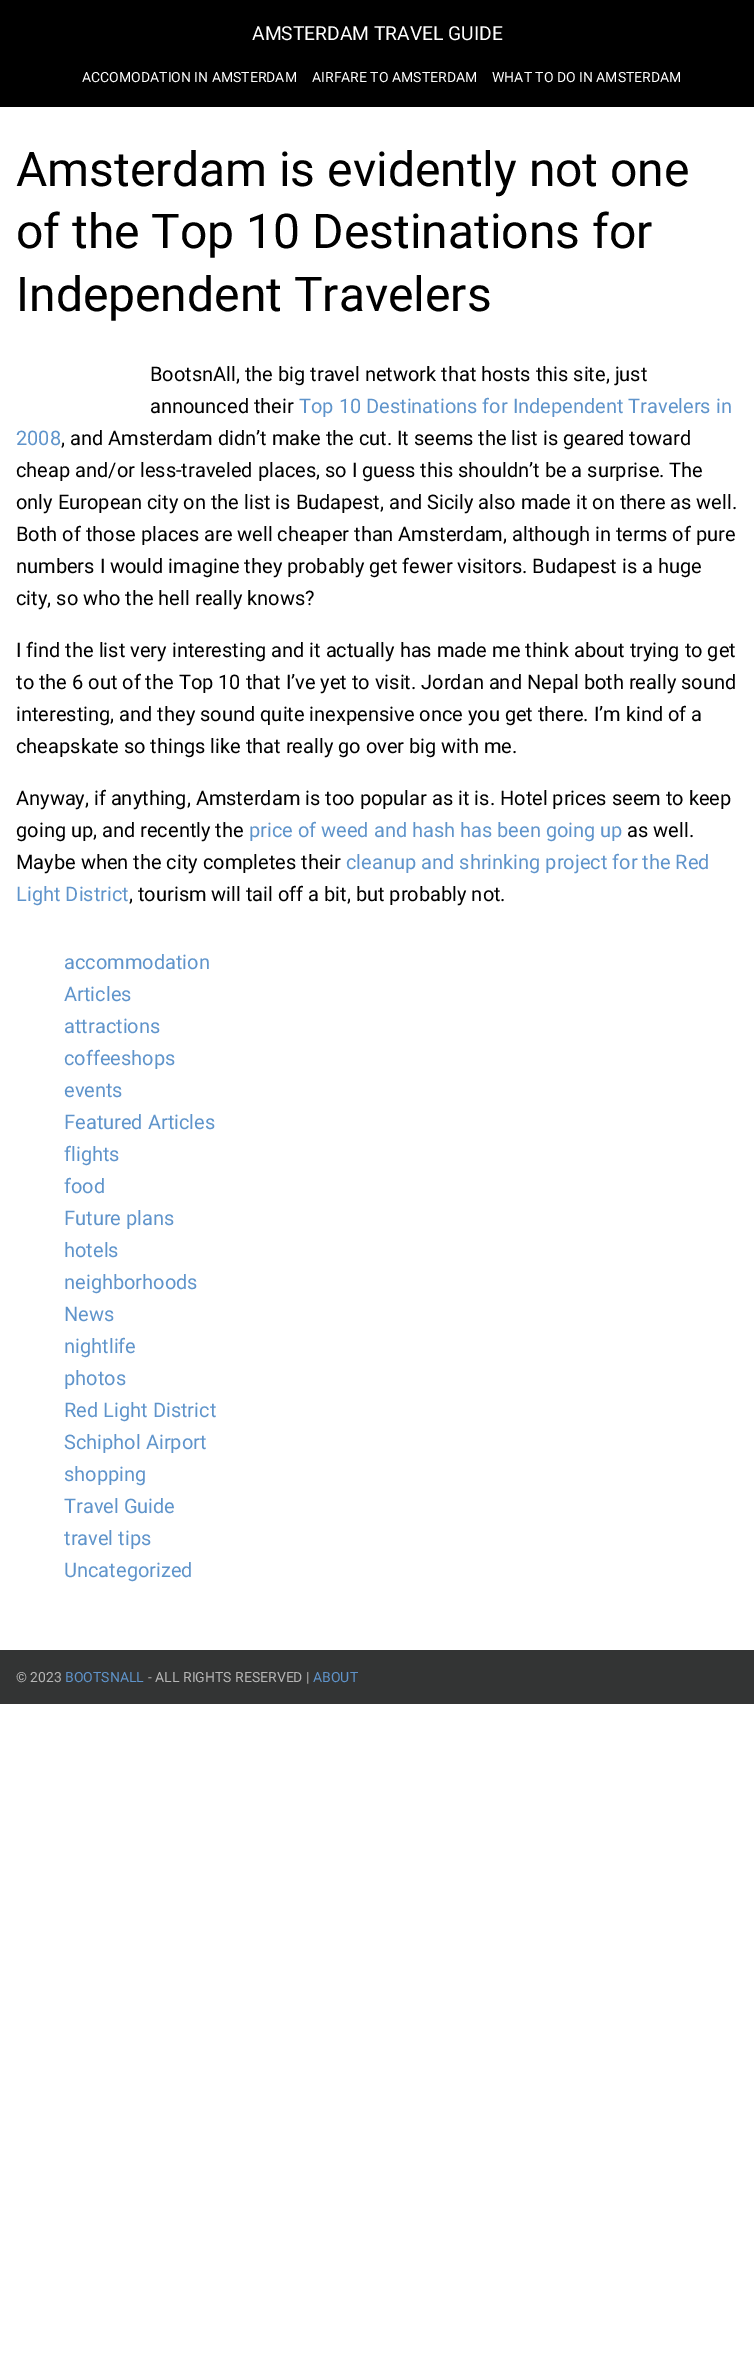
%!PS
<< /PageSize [754 2365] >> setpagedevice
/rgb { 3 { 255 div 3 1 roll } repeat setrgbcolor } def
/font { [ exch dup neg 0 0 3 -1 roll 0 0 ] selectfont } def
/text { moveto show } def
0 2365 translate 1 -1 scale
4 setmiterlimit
255 255 255 rgb
0 0 754 2365 rectfill
0 0 0 rgb
0 0 754 107 rectfill
51 52 52 rgb
0 1650 754 54 rectfill
/Roboto-Regular 19.25 font
255 255 255 rgb
(AMSTERDAM TRAVEL GUIDE) 252 40 text
/Roboto-Regular 14 font
(ACCOMODATION IN AMSTERDAM) 82 82 text
(AIRFARE TO AMSTERDAM) 312 82 text
(WHAT TO DO IN AMSTERDAM) 492 82 text
/Roboto-Regular 48 font
0 0 0 rgb
(Amsterdam is evidently not one) 16 186 text
(of the Top 10 Destinations for) 16 248 text
(Independent Travelers) 16 311 text
/Roboto-Regular 20 font
(BootsnAll, the big travel network that hosts this site, just) 150 381 text
(announced their) 150 413 text
95 148 203 rgb
(Top 10 Destinations for Independent Travelers in) 299 413 text
(2008) 16 445 text
0 0 0 rgb
(, and Amsterdam didn’t make the cut. It seems the list is geared toward) 61 445 text
(cheap and/or less-traveled places, so I guess this shouldn’t be a surprise. The) 16 477 text
(only European city on the list is Budapest, and Sicily also made it on there as well.) 16 509 text
(Both of those places are well cheaper than Amsterdam, although in terms of pure) 16 541 text
(numbers I would imagine they probably get fewer visitors. Budapest is a huge) 16 573 text
(city, so who the hell really knows?) 16 605 text
(I find the list very interesting and it actually has made me think about trying to get) 16 657 text
(to the 6 out of the Top 10 that I’ve yet to visit. Jordan and Nepal both really sound) 16 689 text
(interesting, and they sound quite inexpensive once you get there. I’m kind of a) 16 721 text
(cheapskate so things like that really go over big with me.) 16 753 text
(Anyway, if anything, Amsterdam is too popular as it is. Hotel prices seem to keep) 16 805 text
(going up, and recently the) 16 837 text
95 148 203 rgb
(price of weed and hash has been going up) 249 837 text
0 0 0 rgb
(as well.) 627 837 text
(Maybe when the city completes their) 16 869 text
95 148 203 rgb
(cleanup and shrinking project for the Red) 346 869 text
(Light District) 16 901 text
0 0 0 rgb
(, tourism will tail off a bit, but probably not.) 129 901 text
95 148 203 rgb
(accommodation) 64 969 text
(Articles) 64 1001 text
(attractions) 64 1033 text
(coffeeshops) 64 1065 text
(events) 64 1097 text
(Featured Articles) 64 1129 text
(flights) 64 1161 text
(food) 64 1193 text
(Future plans) 64 1225 text
(hotels) 64 1257 text
(neighborhoods) 64 1289 text
(News) 64 1321 text
(nightlife) 64 1353 text
(photos) 64 1385 text
(Red Light District) 64 1417 text
(Schiphol Airport) 64 1449 text
(shopping) 64 1481 text
(Travel Guide) 64 1513 text
(travel tips) 64 1545 text
(Uncategorized) 64 1577 text
/Roboto-Regular 14 font
182 182 182 rgb
(© 2023) 16 1682 text
95 148 203 rgb
(BOOTSNALL) 65 1682 text
182 182 182 rgb
(- ALL RIGHTS RESERVED |) 148 1682 text
95 148 203 rgb
(ABOUT) 313 1682 text
showpage
